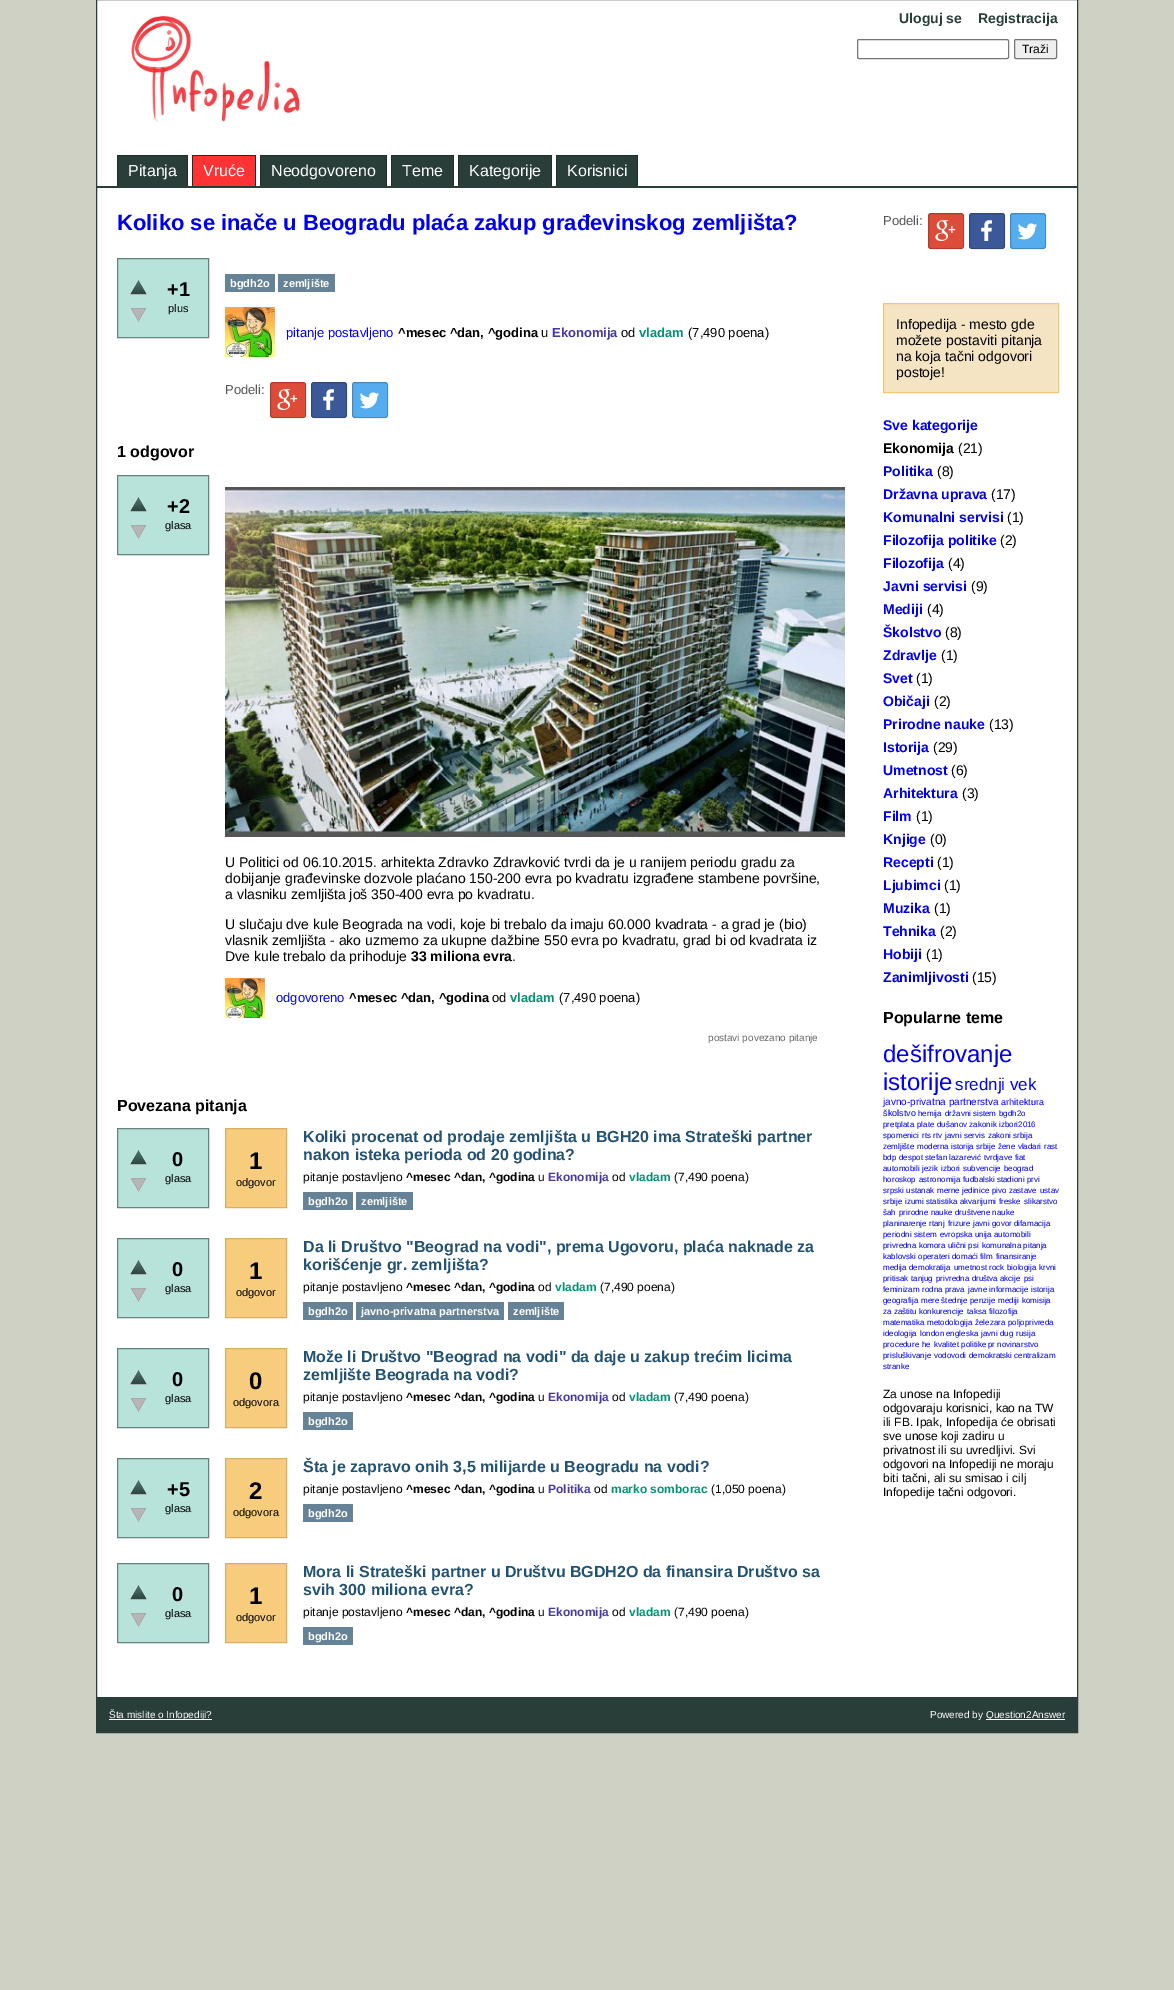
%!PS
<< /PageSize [1174 1990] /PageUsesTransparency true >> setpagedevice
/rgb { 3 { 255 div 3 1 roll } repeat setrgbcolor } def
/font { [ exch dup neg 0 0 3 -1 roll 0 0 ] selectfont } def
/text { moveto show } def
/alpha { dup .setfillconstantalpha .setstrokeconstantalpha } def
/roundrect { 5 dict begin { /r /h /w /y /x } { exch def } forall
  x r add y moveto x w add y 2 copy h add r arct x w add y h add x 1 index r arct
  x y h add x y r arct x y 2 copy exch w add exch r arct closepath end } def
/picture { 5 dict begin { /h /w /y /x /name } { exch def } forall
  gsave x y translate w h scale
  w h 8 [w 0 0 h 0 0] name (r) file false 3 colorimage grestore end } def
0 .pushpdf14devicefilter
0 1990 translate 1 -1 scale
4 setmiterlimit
207 209 196 rgb
0 0 1174 1990 rectfill
255 255 255 rgb
97 0 980 1697 rectfill
41 61 57 rgb
96.5 -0.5 981 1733 rectstroke
97 186 980 2 rectfill
(img_01.rgb) 130 15 170 108 picture
118 118 118 rgb
857.5 39.5 151 19 1.5 roundrect stroke
239 239 239 rgb
1014.5 39.5 42 19 1.5 roundrect gsave fill grestore
118 118 118 rgb
stroke
31 46 43 rgb
117 155 71 1 rectfill
187 155 1 31 rectfill
117 155 1 31 rectfill
41 61 57 rgb
118 156 69 30 rectfill
31 46 43 rgb
192 155 64 1 rectfill
255 155 1 31 rectfill
192 155 1 31 rectfill
255 51 51 rgb
193 156 62 30 rectfill
31 46 43 rgb
260 155 127 1 rectfill
386 155 1 31 rectfill
260 155 1 31 rectfill
41 61 57 rgb
261 156 125 30 rectfill
31 46 43 rgb
391 155 63 1 rectfill
453 155 1 31 rectfill
391 155 1 31 rectfill
41 61 57 rgb
392 156 61 30 rectfill
31 46 43 rgb
458 155 94 1 rectfill
551 155 1 31 rectfill
458 155 1 31 rectfill
41 61 57 rgb
459 156 92 30 rectfill
31 46 43 rgb
556 155 82 1 rectfill
637 155 1 31 rectfill
556 155 1 31 rectfill
41 61 57 rgb
557 156 80 30 rectfill
183 227 218 rgb
117.5 258.5 moveto 91 0 rlineto 0 79 rlineto -91 0 rlineto closepath gsave fill grestore
98 132 125 rgb
stroke
(img_02.rgb) 130 280 17 15 picture
(img_03.rgb) 131 308 15 14 picture
101 130 150 rgb
225 274 50 18 rectfill
278 274 57 18 rectfill
(img_04.rgb) 225 307 50 50 picture
221 75 57 rgb
270 382 36 36 3 roundrect fill
0.2 alpha
0 0 0 rgb
270.5 382.5 35 35 2.5 roundrect stroke
1 alpha
(img_05.rgb) 277 389 21 21 picture
59 89 152 rgb
311 382 36 36 3 roundrect fill
0.2 alpha
0 0 0 rgb
311.5 382.5 35 35 2.5 roundrect stroke
1 alpha
(img_06.rgb) 323 389 11 21 picture
85 172 238 rgb
352 382 36 36 3 roundrect fill
0.2 alpha
0 0 0 rgb
352.5 382.5 35 35 2.5 roundrect stroke
1 alpha
(img_07.rgb) 359 392 21 17 picture
183 227 218 rgb
117.5 475.5 moveto 91 0 rlineto 0 79 rlineto -91 0 rlineto closepath gsave fill grestore
98 132 125 rgb
stroke
(img_02.rgb) 130 497 17 15 picture
(img_03.rgb) 131 525 15 14 picture
(img_08.rgb) 225 487 620 350 picture
(img_09.rgb) 225 978 40 40 picture
183 227 218 rgb
117.5 1128.5 moveto 91 0 rlineto 0 79 rlineto -91 0 rlineto closepath gsave fill grestore
98 132 125 rgb
stroke
(img_02.rgb) 130 1150 17 15 picture
(img_03.rgb) 131 1178 15 14 picture
247 205 125 rgb
225.5 1128.5 moveto 61 0 rlineto 0 79 rlineto -61 0 rlineto closepath gsave fill grestore
214 174 100 rgb
stroke
101 130 150 rgb
303 1192 50 18 rectfill
356 1192 57 18 rectfill
183 227 218 rgb
117.5 1238.5 moveto 91 0 rlineto 0 79 rlineto -91 0 rlineto closepath gsave fill grestore
98 132 125 rgb
stroke
(img_02.rgb) 130 1260 17 15 picture
(img_03.rgb) 131 1288 15 14 picture
247 205 125 rgb
225.5 1238.5 moveto 61 0 rlineto 0 79 rlineto -61 0 rlineto closepath gsave fill grestore
214 174 100 rgb
stroke
101 130 150 rgb
303 1302 50 18 rectfill
356 1302 148 18 rectfill
508 1302 56 18 rectfill
183 227 218 rgb
117.5 1348.5 moveto 91 0 rlineto 0 79 rlineto -91 0 rlineto closepath gsave fill grestore
98 132 125 rgb
stroke
(img_02.rgb) 130 1370 17 15 picture
(img_03.rgb) 131 1398 15 14 picture
247 205 125 rgb
225.5 1348.5 moveto 61 0 rlineto 0 79 rlineto -61 0 rlineto closepath gsave fill grestore
214 174 100 rgb
stroke
101 130 150 rgb
303 1412 50 18 rectfill
183 227 218 rgb
117.5 1458.5 moveto 91 0 rlineto 0 79 rlineto -91 0 rlineto closepath gsave fill grestore
98 132 125 rgb
stroke
(img_02.rgb) 130 1480 17 15 picture
(img_03.rgb) 131 1508 15 14 picture
247 205 125 rgb
225.5 1458.5 moveto 61 0 rlineto 0 79 rlineto -61 0 rlineto closepath gsave fill grestore
214 174 100 rgb
stroke
101 130 150 rgb
303 1504 50 18 rectfill
183 227 218 rgb
117.5 1563.5 moveto 91 0 rlineto 0 79 rlineto -91 0 rlineto closepath gsave fill grestore
98 132 125 rgb
stroke
(img_02.rgb) 130 1585 17 15 picture
(img_03.rgb) 131 1613 15 14 picture
247 205 125 rgb
225.5 1563.5 moveto 61 0 rlineto 0 79 rlineto -61 0 rlineto closepath gsave fill grestore
214 174 100 rgb
stroke
101 130 150 rgb
303 1627 50 18 rectfill
221 75 57 rgb
928 213 36 36 3 roundrect fill
0.2 alpha
0 0 0 rgb
928.5 213.5 35 35 2.5 roundrect stroke
1 alpha
(img_05.rgb) 935 220 21 21 picture
59 89 152 rgb
969 213 36 36 3 roundrect fill
0.2 alpha
0 0 0 rgb
969.5 213.5 35 35 2.5 roundrect stroke
1 alpha
(img_06.rgb) 981 220 11 21 picture
85 172 238 rgb
1010 213 36 36 3 roundrect fill
0.2 alpha
0 0 0 rgb
1010.5 213.5 35 35 2.5 roundrect stroke
1 alpha
(img_07.rgb) 1017 223 21 17 picture
245 228 195 rgb
883.5 303.5 moveto 175 0 rlineto 0 89 rlineto -175 0 rlineto closepath gsave fill grestore
243 199 114 rgb
stroke
41 61 57 rgb
97 1697 980 35 rectfill
255 255 255 rgb
109 1719 103 1 rectfill
986 1719 79 1 rectfill
/LiberationSans-Bold 14 font
41 61 57 rgb
(Uloguj se) 899 23 text
(Registracija) 978 23 text
/LiberationSans-Regular 12 font
0 0 0 rgb
(Traži) 1022 53 text
/LiberationSans-Regular 16 font
255 255 255 rgb
(Pitanja) 128 176 text
(Vruće) 203 176 text
(Neodgovoreno) 271 176 text
(Teme) 402 176 text
(Kategorije) 469 176 text
(Korisnici) 567 176 text
/LiberationSans-Bold 22 font
0 0 238 rgb
(Koliko se inače u Beogradu plaća zakup građevinskog zemljišta?) 117 230 text
/LiberationSans-Bold 20 font
0 0 0 rgb
(+1) 167 296 text
/LiberationSans-Regular 11 font
(plus) 168 312 text
/LiberationSans-Bold 11 font
255 255 255 rgb
(bgdh2o) 230 287 text
(zemljište) 283 287 text
/LiberationSans-Regular 13 font
0 0 238 rgb
(pitanje postavljeno) 286 337 text
/LiberationSans-Bold 13 font
0 0 0 rgb
(^mesec ^dan, ^godina) 398 337 text
/LiberationSans-Regular 13 font
(u) 541 337 text
/LiberationSans-Bold 13 font
71 58 159 rgb
(Ekonomija) 552 337 text
/LiberationSans-Regular 13 font
0 0 0 rgb
(od) 621 337 text
/LiberationSans-Bold 13 font
7 144 117 rgb
(vladam) 639 337 text
/LiberationSans-Regular 13 font
0 0 0 rgb
(\(7,490 poena\)) 688 337 text
85 85 85 rgb
(Podeli:) 225 394 text
/LiberationSans-Bold 16 font
0 0 0 rgb
(1 odgovor) 117 457 text
/LiberationSans-Bold 20 font
(+2) 167 513 text
/LiberationSans-Regular 11 font
(glasa) 165 529 text
/LiberationSans-Regular 14 font
(U Politici od 06.10.2015. arhitekta Zdravko Zdravković tvrdi da je u ranijem periodu gradu za) 225 867 text
(dobijanje građevinske dozvole plaćano 150-200 evra po kvadratu izgrađene stambene površine,) 225 883 text
(a vlasniku zemljišta još 350-400 evra po kvadratu.) 225 899 text
(U slučaju dve kule Beograda na vodi, koje bi trebalo da imaju 60.000 kvadrata - a grad je \(bio\)) 225 929 text
(vlasnik zemljišta - ako uzmemo za ukupne dažbine 550 evra po kvadratu, grad bi od kvadrata iz) 225 945 text
(Dve kule trebalo da prihoduje) 225 961 text
/LiberationSans-Bold 14 font
(33 miliona evra) 411 961 text
/LiberationSans-Regular 14 font
(.) 512 961 text
/LiberationSans-Regular 13 font
0 0 238 rgb
(odgovoreno) 276 1002 text
/LiberationSans-Bold 13 font
0 0 0 rgb
(^mesec ^dan, ^godina) 349 1002 text
/LiberationSans-Regular 13 font
(od) 492 1002 text
/LiberationSans-Bold 13 font
7 144 117 rgb
(vladam) 510 1002 text
/LiberationSans-Regular 13 font
0 0 0 rgb
(\(7,490 poena\)) 559 1002 text
/LiberationSans-Regular 10 font
102 102 102 rgb
(postavi povezano pitanje) 708 1041 text
/LiberationSans-Bold 16 font
0 0 0 rgb
(Povezana pitanja) 117 1111 text
/LiberationSans-Bold 20 font
(0) 172 1166 text
/LiberationSans-Regular 11 font
(glasa) 165 1182 text
/LiberationSans-Bold 24 font
(1) 249 1169 text
/LiberationSans-Regular 11 font
(odgovor) 236 1186 text
/LiberationSans-Bold 16 font
35 82 114 rgb
(Koliki procenat od prodaje zemljišta u BGH20 ima Strateški partner) 303 1142 text
(nakon isteka perioda od 20 godina?) 303 1160 text
/LiberationSans-Regular 12 font
0 0 0 rgb
(pitanje postavljeno) 303 1181 text
/LiberationSans-Bold 12 font
(^mesec ^dan, ^godina) 406 1181 text
/LiberationSans-Regular 12 font
(u) 538 1181 text
/LiberationSans-Bold 12 font
71 58 159 rgb
(Ekonomija) 548 1181 text
/LiberationSans-Regular 12 font
0 0 0 rgb
(od) 612 1181 text
/LiberationSans-Bold 12 font
7 144 117 rgb
(vladam) 629 1181 text
/LiberationSans-Regular 12 font
0 0 0 rgb
(\(7,490 poena\)) 674 1181 text
/LiberationSans-Bold 11 font
255 255 255 rgb
(bgdh2o) 308 1205 text
(zemljište) 361 1205 text
/LiberationSans-Bold 20 font
0 0 0 rgb
(0) 172 1276 text
/LiberationSans-Regular 11 font
(glasa) 165 1292 text
/LiberationSans-Bold 24 font
(1) 249 1279 text
/LiberationSans-Regular 11 font
(odgovor) 236 1296 text
/LiberationSans-Bold 16 font
35 82 114 rgb
(Da li Društvo "Beograd na vodi", prema Ugovoru, plaća naknade za) 303 1252 text
(korišćenje gr. zemljišta?) 303 1270 text
/LiberationSans-Regular 12 font
0 0 0 rgb
(pitanje postavljeno) 303 1291 text
/LiberationSans-Bold 12 font
(^mesec ^dan, ^godina) 406 1291 text
/LiberationSans-Regular 12 font
(od) 538 1291 text
/LiberationSans-Bold 12 font
7 144 117 rgb
(vladam) 555 1291 text
/LiberationSans-Regular 12 font
0 0 0 rgb
(\(7,490 poena\)) 600 1291 text
/LiberationSans-Bold 11 font
255 255 255 rgb
(bgdh2o) 308 1315 text
(javno-privatna partnerstva) 361 1315 text
(zemljište) 513 1315 text
/LiberationSans-Bold 20 font
0 0 0 rgb
(0) 172 1386 text
/LiberationSans-Regular 11 font
(glasa) 165 1402 text
/LiberationSans-Bold 24 font
(0) 249 1389 text
/LiberationSans-Regular 11 font
(odgovora) 233 1406 text
/LiberationSans-Bold 16 font
35 82 114 rgb
(Može li Društvo "Beograd na vodi" da daje u zakup trećim licima) 303 1362 text
(zemljište Beograda na vodi?) 303 1380 text
/LiberationSans-Regular 12 font
0 0 0 rgb
(pitanje postavljeno) 303 1401 text
/LiberationSans-Bold 12 font
(^mesec ^dan, ^godina) 406 1401 text
/LiberationSans-Regular 12 font
(u) 538 1401 text
/LiberationSans-Bold 12 font
71 58 159 rgb
(Ekonomija) 548 1401 text
/LiberationSans-Regular 12 font
0 0 0 rgb
(od) 612 1401 text
/LiberationSans-Bold 12 font
7 144 117 rgb
(vladam) 629 1401 text
/LiberationSans-Regular 12 font
0 0 0 rgb
(\(7,490 poena\)) 674 1401 text
/LiberationSans-Bold 11 font
255 255 255 rgb
(bgdh2o) 308 1425 text
/LiberationSans-Bold 20 font
0 0 0 rgb
(+5) 167 1496 text
/LiberationSans-Regular 11 font
(glasa) 165 1512 text
/LiberationSans-Bold 24 font
(2) 249 1499 text
/LiberationSans-Regular 11 font
(odgovora) 233 1516 text
/LiberationSans-Bold 16 font
35 82 114 rgb
(Šta je zapravo onih 3,5 milijarde u Beogradu na vodi?) 303 1472 text
/LiberationSans-Regular 12 font
0 0 0 rgb
(pitanje postavljeno) 303 1493 text
/LiberationSans-Bold 12 font
(^mesec ^dan, ^godina) 406 1493 text
/LiberationSans-Regular 12 font
(u) 538 1493 text
/LiberationSans-Bold 12 font
71 58 159 rgb
(Politika) 548 1493 text
/LiberationSans-Regular 12 font
0 0 0 rgb
(od) 594 1493 text
/LiberationSans-Bold 12 font
7 144 117 rgb
(marko somborac) 611 1493 text
/LiberationSans-Regular 12 font
0 0 0 rgb
(\(1,050 poena\)) 711 1493 text
/LiberationSans-Bold 11 font
255 255 255 rgb
(bgdh2o) 308 1517 text
/LiberationSans-Bold 20 font
0 0 0 rgb
(0) 172 1601 text
/LiberationSans-Regular 11 font
(glasa) 165 1617 text
/LiberationSans-Bold 24 font
(1) 249 1604 text
/LiberationSans-Regular 11 font
(odgovor) 236 1621 text
/LiberationSans-Bold 16 font
35 82 114 rgb
(Mora li Strateški partner u Društvu BGDH2O da finansira Društvo sa) 303 1577 text
(svih 300 miliona evra?) 303 1595 text
/LiberationSans-Regular 12 font
0 0 0 rgb
(pitanje postavljeno) 303 1616 text
/LiberationSans-Bold 12 font
(^mesec ^dan, ^godina) 406 1616 text
/LiberationSans-Regular 12 font
(u) 538 1616 text
/LiberationSans-Bold 12 font
71 58 159 rgb
(Ekonomija) 548 1616 text
/LiberationSans-Regular 12 font
0 0 0 rgb
(od) 612 1616 text
/LiberationSans-Bold 12 font
7 144 117 rgb
(vladam) 629 1616 text
/LiberationSans-Regular 12 font
0 0 0 rgb
(\(7,490 poena\)) 674 1616 text
/LiberationSans-Bold 11 font
255 255 255 rgb
(bgdh2o) 308 1640 text
/LiberationSans-Regular 13 font
85 85 85 rgb
(Podeli:) 883 225 text
/LiberationSans-Regular 14 font
0 0 0 rgb
(Infopedija - mesto gde) 896 329 text
(možete postaviti pitanja) 896 345 text
(na koja tačni odgovori) 896 361 text
(postoje!) 896 377 text
/LiberationSans-Bold 14 font
0 0 238 rgb
(Sve kategorije) 883 430 text
0 0 0 rgb
(Ekonomija) 883 453 text
/LiberationSans-Regular 14 font
(\(21\)) 958 453 text
/LiberationSans-Bold 14 font
0 0 238 rgb
(Politika) 883 476 text
/LiberationSans-Regular 14 font
0 0 0 rgb
(\(8\)) 937 476 text
/LiberationSans-Bold 14 font
0 0 238 rgb
(Državna uprava) 883 499 text
/LiberationSans-Regular 14 font
0 0 0 rgb
(\(17\)) 991 499 text
/LiberationSans-Bold 14 font
0 0 238 rgb
(Komunalni servisi) 883 522 text
/LiberationSans-Regular 14 font
0 0 0 rgb
(\(1\)) 1007 522 text
/LiberationSans-Bold 14 font
0 0 238 rgb
(Filozofija politike) 883 545 text
/LiberationSans-Regular 14 font
0 0 0 rgb
(\(2\)) 1000 545 text
/LiberationSans-Bold 14 font
0 0 238 rgb
(Filozofija) 883 568 text
/LiberationSans-Regular 14 font
0 0 0 rgb
(\(4\)) 948 568 text
/LiberationSans-Bold 14 font
0 0 238 rgb
(Javni servisi) 883 591 text
/LiberationSans-Regular 14 font
0 0 0 rgb
(\(9\)) 971 591 text
/LiberationSans-Bold 14 font
0 0 238 rgb
(Mediji) 883 614 text
/LiberationSans-Regular 14 font
0 0 0 rgb
(\(4\)) 927 614 text
/LiberationSans-Bold 14 font
0 0 238 rgb
(Školstvo) 883 637 text
/LiberationSans-Regular 14 font
0 0 0 rgb
(\(8\)) 945 637 text
/LiberationSans-Bold 14 font
0 0 238 rgb
(Zdravlje) 883 660 text
/LiberationSans-Regular 14 font
0 0 0 rgb
(\(1\)) 941 660 text
/LiberationSans-Bold 14 font
0 0 238 rgb
(Svet) 883 683 text
/LiberationSans-Regular 14 font
0 0 0 rgb
(\(1\)) 916 683 text
/LiberationSans-Bold 14 font
0 0 238 rgb
(Običaji) 883 706 text
/LiberationSans-Regular 14 font
0 0 0 rgb
(\(2\)) 934 706 text
/LiberationSans-Bold 14 font
0 0 238 rgb
(Prirodne nauke) 883 729 text
/LiberationSans-Regular 14 font
0 0 0 rgb
(\(13\)) 989 729 text
/LiberationSans-Bold 14 font
0 0 238 rgb
(Istorija) 883 752 text
/LiberationSans-Regular 14 font
0 0 0 rgb
(\(29\)) 933 752 text
/LiberationSans-Bold 14 font
0 0 238 rgb
(Umetnost) 883 775 text
/LiberationSans-Regular 14 font
0 0 0 rgb
(\(6\)) 951 775 text
/LiberationSans-Bold 14 font
0 0 238 rgb
(Arhitektura) 883 798 text
/LiberationSans-Regular 14 font
0 0 0 rgb
(\(3\)) 962 798 text
/LiberationSans-Bold 14 font
0 0 238 rgb
(Film) 883 821 text
/LiberationSans-Regular 14 font
0 0 0 rgb
(\(1\)) 916 821 text
/LiberationSans-Bold 14 font
0 0 238 rgb
(Knjige) 883 844 text
/LiberationSans-Regular 14 font
0 0 0 rgb
(\(0\)) 930 844 text
/LiberationSans-Bold 14 font
0 0 238 rgb
(Recepti) 883 867 text
/LiberationSans-Regular 14 font
0 0 0 rgb
(\(1\)) 937 867 text
/LiberationSans-Bold 14 font
0 0 238 rgb
(Ljubimci) 883 890 text
/LiberationSans-Regular 14 font
0 0 0 rgb
(\(1\)) 944 890 text
/LiberationSans-Bold 14 font
0 0 238 rgb
(Muzika) 883 913 text
/LiberationSans-Regular 14 font
0 0 0 rgb
(\(1\)) 934 913 text
/LiberationSans-Bold 14 font
0 0 238 rgb
(Tehnika) 883 936 text
/LiberationSans-Regular 14 font
0 0 0 rgb
(\(2\)) 940 936 text
/LiberationSans-Bold 14 font
0 0 238 rgb
(Hobiji) 883 959 text
/LiberationSans-Regular 14 font
0 0 0 rgb
(\(1\)) 926 959 text
/LiberationSans-Bold 14 font
0 0 238 rgb
(Zanimljivosti) 883 982 text
/LiberationSans-Regular 14 font
0 0 0 rgb
(\(15\)) 972 982 text
/LiberationSans-Bold 16 font
(Popularne teme) 883 1023 text
/LiberationSans-Regular 24 font
0 0 238 rgb
(dešifrovanje) 883 1062 text
(istorije) 883 1090 text
/LiberationSans-Regular 17 font
(srednji vek) 955 1090 text
/LiberationSans-Regular 10 font
(javno-privatna partnerstva) 883 1105 text
/LiberationSans-Regular 9 font
(arhitektura) 1001 1105 text
(školstvo) 883 1116 text
/LiberationSans-Regular 8 font
(hemija) 918 1116 text
(državni sistem) 945 1116 text
(bgdh2o) 999 1116 text
(pretplata) 883 1127 text
(plate) 917 1127 text
(dušanov zakonik) 937 1127 text
(izbori2016) 999 1127 text
(spomenici) 883 1138 text
(rts) 922 1138 text
(rtv) 933 1138 text
(javni servis) 945 1138 text
(zakoni) 988 1138 text
(srbija) 1013 1138 text
(zemljište) 883 1149 text
(moderna istorija srbije) 917 1149 text
(žene vladari) 998 1149 text
(rast) 1044 1149 text
(bdp) 883 1160 text
(despot stefan lazarević) 899 1160 text
(tvrdjave) 984 1160 text
(fiat) 1015 1160 text
(automobili) 883 1171 text
(jezik) 922 1171 text
(izbori) 941 1171 text
(subvencije) 963 1171 text
(beograd) 1004 1171 text
(horoskop) 883 1182 text
(astronomija) 919 1182 text
(fudbalski stadioni) 963 1182 text
(prvi) 1027 1182 text
(srpski ustanak) 883 1193 text
(merne jedinice) 937 1193 text
(pivo) 992 1193 text
(zastave) 1009 1193 text
(ustav) 1040 1193 text
(srbije) 883 1204 text
(izumi) 905 1204 text
(statistika) 926 1204 text
(akvarijumi) 960 1204 text
(freske) 999 1204 text
(slikarstvo) 1024 1204 text
(šah) 883 1215 text
(prirodne nauke) 899 1215 text
(društvene nauke) 955 1215 text
(planinarenje) 883 1226 text
(rtanj) 929 1226 text
(frizure) 948 1226 text
(javni govor) 973 1226 text
(difamacija) 1014 1226 text
(periodni sistem) 883 1237 text
(evropska unija) 940 1237 text
(automobili) 994 1237 text
(privredna komora) 883 1248 text
(ulični psi) 948 1248 text
(komunalna pitanja) 982 1248 text
(kablovski operateri) 883 1259 text
(domaći film) 952 1259 text
(finansiranje) 996 1259 text
(medija) 883 1270 text
(demokratija) 909 1270 text
(umetnost) 954 1270 text
(rock) 989 1270 text
(biologija) 1007 1270 text
(krvni) 1039 1270 text
(pritisak) 883 1281 text
(tanjug) 911 1281 text
(privredna društva) 936 1281 text
(akcije) 1000 1281 text
(psi) 1024 1281 text
(feminizam) 883 1292 text
(rodna prava) 922 1292 text
(javne informacije) 968 1292 text
(istorija) 1031 1292 text
(geografija) 883 1303 text
(mere štednje) 921 1303 text
(penzije) 970 1303 text
(mediji) 998 1303 text
(komisija) 1022 1303 text
(za zaštitu konkurencije) 883 1314 text
(taksa) 967 1314 text
(filozofija) 989 1314 text
(matematika) 883 1325 text
(metodologija) 927 1325 text
(železara) 975 1325 text
(poljoprivreda) 1008 1325 text
(ideologija) 883 1336 text
(london) 920 1336 text
(engleska) 946 1336 text
(javni dug) 981 1336 text
(rusija) 1016 1336 text
(procedure) 883 1347 text
(he) 922 1347 text
(kvalitet politike) 934 1347 text
(pr novinarstvo) 988 1347 text
(prisluškivanje) 883 1358 text
(vodovodi) 934 1358 text
(demokratski centralizam) 969 1358 text
(stranke) 883 1369 text
/LiberationSans-Regular 12 font
0 0 0 rgb
(Za unose na Infopediji) 883 1398 text
(odgovaraju korisnici, kao na TW) 883 1412 text
(ili FB. Ipak, Infopedija će obrisati) 883 1426 text
(sve unose koji zadiru u) 883 1440 text
(privatnost ili su uvredljivi. Svi) 883 1454 text
(odgovori na Infopediji ne moraju) 883 1468 text
(biti tačni, ali su smisao i cilj) 883 1482 text
(Infopedije tačni odgovori.) 883 1496 text
/LiberationSans-Regular 10 font
255 255 255 rgb
(Šta mislite o Infopediji?) 109 1718 text
(Powered by) 930 1718 text
(Question2Answer) 986 1718 text
.poppdf14devicefilter showpage
